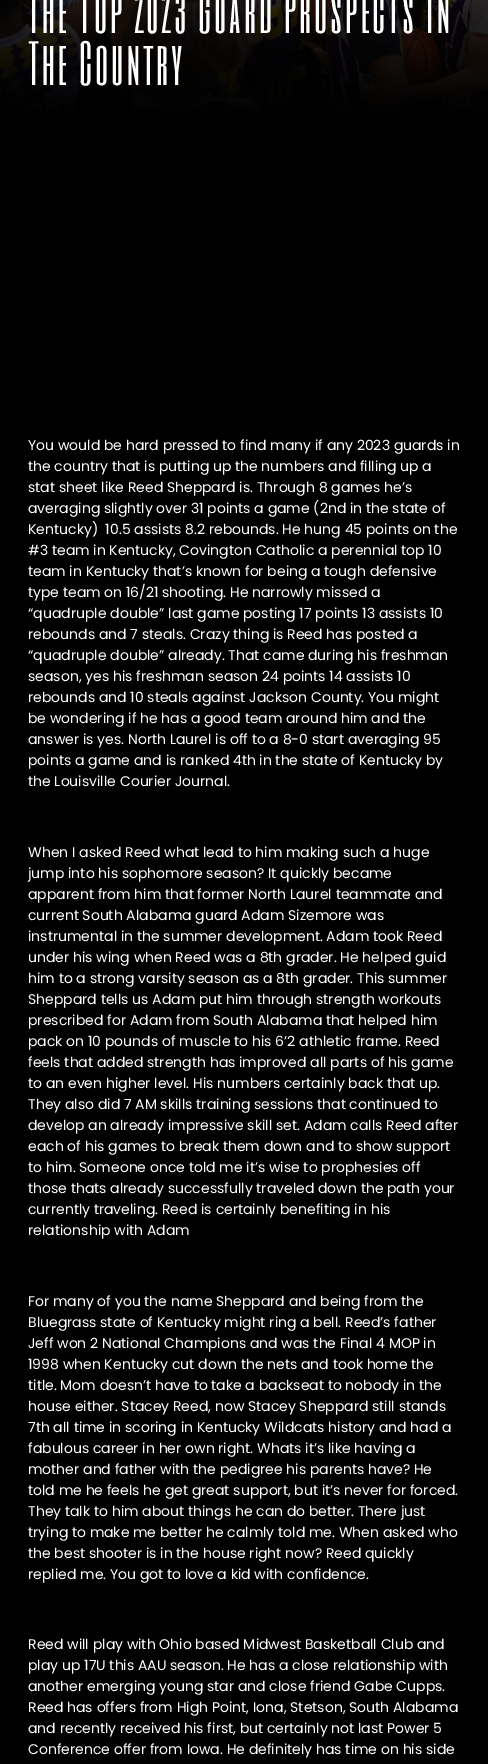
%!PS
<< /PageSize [488 1764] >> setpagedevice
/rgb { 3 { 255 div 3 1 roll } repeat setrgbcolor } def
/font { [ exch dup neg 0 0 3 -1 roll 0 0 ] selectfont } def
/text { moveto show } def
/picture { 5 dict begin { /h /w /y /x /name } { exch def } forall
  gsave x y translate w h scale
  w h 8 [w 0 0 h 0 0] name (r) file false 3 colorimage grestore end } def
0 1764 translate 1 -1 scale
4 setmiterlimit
0 0 0 rgb
0 0 488 1764 rectfill
(img_01.rgb) 0 0 488 116 picture
/SixCaps-Regular 52 font
255 255 255 rgb
28 33 moveto 3 0 (The Top 2023 Guard Prospects In) ashow
28 85 moveto 3 0 (The Country) ashow
/Poppins-Regular 14 font
(You would be hard pressed to find many if any 2023 guards in) 28 450 text
(the country that is putting up the numbers and filling up a) 28 471 text
(stat sheet like Reed Sheppard is. Through 8 games he’s) 28 492 text
(averaging slightly over 31 points a game \(2nd in the state of) 28 513 text
(Kentucky\)  10.5 assists 8.2 rebounds. He hung 45 points on the) 28 534 text
(#3 team in Kentucky, Covington Catholic a perennial top 10) 28 555 text
(team in Kentucky that’s known for being a tough defensive) 28 576 text
(type team on 16/21 shooting. He narrowly missed a) 28 597 text
(“quadruple double” last game posting 17 points 13 assists 10) 28 618 text
(rebounds and 7 steals. Crazy thing is Reed has posted a) 28 639 text
(“quadruple double” already. That came during his freshman) 28 660 text
(season, yes his freshman season 24 points 14 assists 10) 28 681 text
(rebounds and 10 steals against Jackson County. You might) 28 702 text
(be wondering if he has a good team around him and the) 28 723 text
(answer is yes. North Laurel is off to a 8-0 start averaging 95) 28 744 text
(points a game and is ranked 4th in the state of Kentucky by) 28 765 text
(the Louisville Courier Journal.) 28 786 text
(When I asked Reed what lead to him making such a huge) 28 857 text
(jump into his sophomore season? It quickly became) 28 878 text
(apparent from him that former North Laurel teammate and) 28 899 text
(current South Alabama guard Adam Sizemore was) 28 920 text
(instrumental in the summer development. Adam took Reed) 28 941 text
(under his wing when Reed was a 8th grader. He helped guid) 28 962 text
(him to a strong varsity season as a 8th grader. This summer) 28 983 text
(Sheppard tells us Adam put him through strength workouts) 28 1004 text
(prescribed for Adam from South Alabama that helped him) 28 1025 text
(pack on 10 pounds of muscle to his 6’2 athletic frame. Reed) 28 1046 text
(feels that added strength has improved all parts of his game) 28 1067 text
(to an even higher level. His numbers certainly back that up.) 28 1088 text
(They also did 7 AM skills training sessions that continued to) 28 1109 text
(develop an already impressive skill set. Adam calls Reed after) 28 1130 text
(each of his games to break them down and to show support) 28 1151 text
(to him. Someone once told me it’s wise to prophesies off) 28 1172 text
(those thats already successfully traveled down the path your) 28 1193 text
(currently traveling. Reed is certainly benefiting in his) 28 1214 text
(relationship with Adam) 28 1235 text
(For many of you the name Sheppard and being from the) 28 1306 text
(Bluegrass state of Kentucky might ring a bell. Reed’s father) 28 1327 text
(Jeff won 2 National Champions and was the Final 4 MOP in) 28 1348 text
(1998 when Kentucky cut down the nets and took home the) 28 1369 text
(title. Mom doesn’t have to take a backseat to nobody in the) 28 1390 text
(house either. Stacey Reed, now Stacey Sheppard still stands) 28 1411 text
(7th all time in scoring in Kentucky Wildcats history and had a) 28 1432 text
(fabulous career in her own right. Whats it’s like having a) 28 1453 text
(mother and father with the pedigree his parents have? He) 28 1474 text
(told me he feels he get great support, but it’s never for forced.) 28 1495 text
(They talk to him about things he can do better. There just) 28 1516 text
(trying to make me better he calmly told me. When asked who) 28 1537 text
(the best shooter is in the house right now? Reed quickly) 28 1558 text
(replied me. You got to love a kid with confidence.) 28 1579 text
(Reed will play with Ohio based Midwest Basketball Club and) 28 1649 text
(play up 17U this AAU season. He has a close relationship with) 28 1670 text
(another emerging young star and close friend Gabe Cupps.) 28 1691 text
(Reed has offers from High Point, Iona, Stetson, South Alabama) 28 1712 text
(and recently received his first, but certainly not last Power 5) 28 1733 text
(Conference offer from Iowa. He definitely has time on his side) 28 1754 text
showpage
